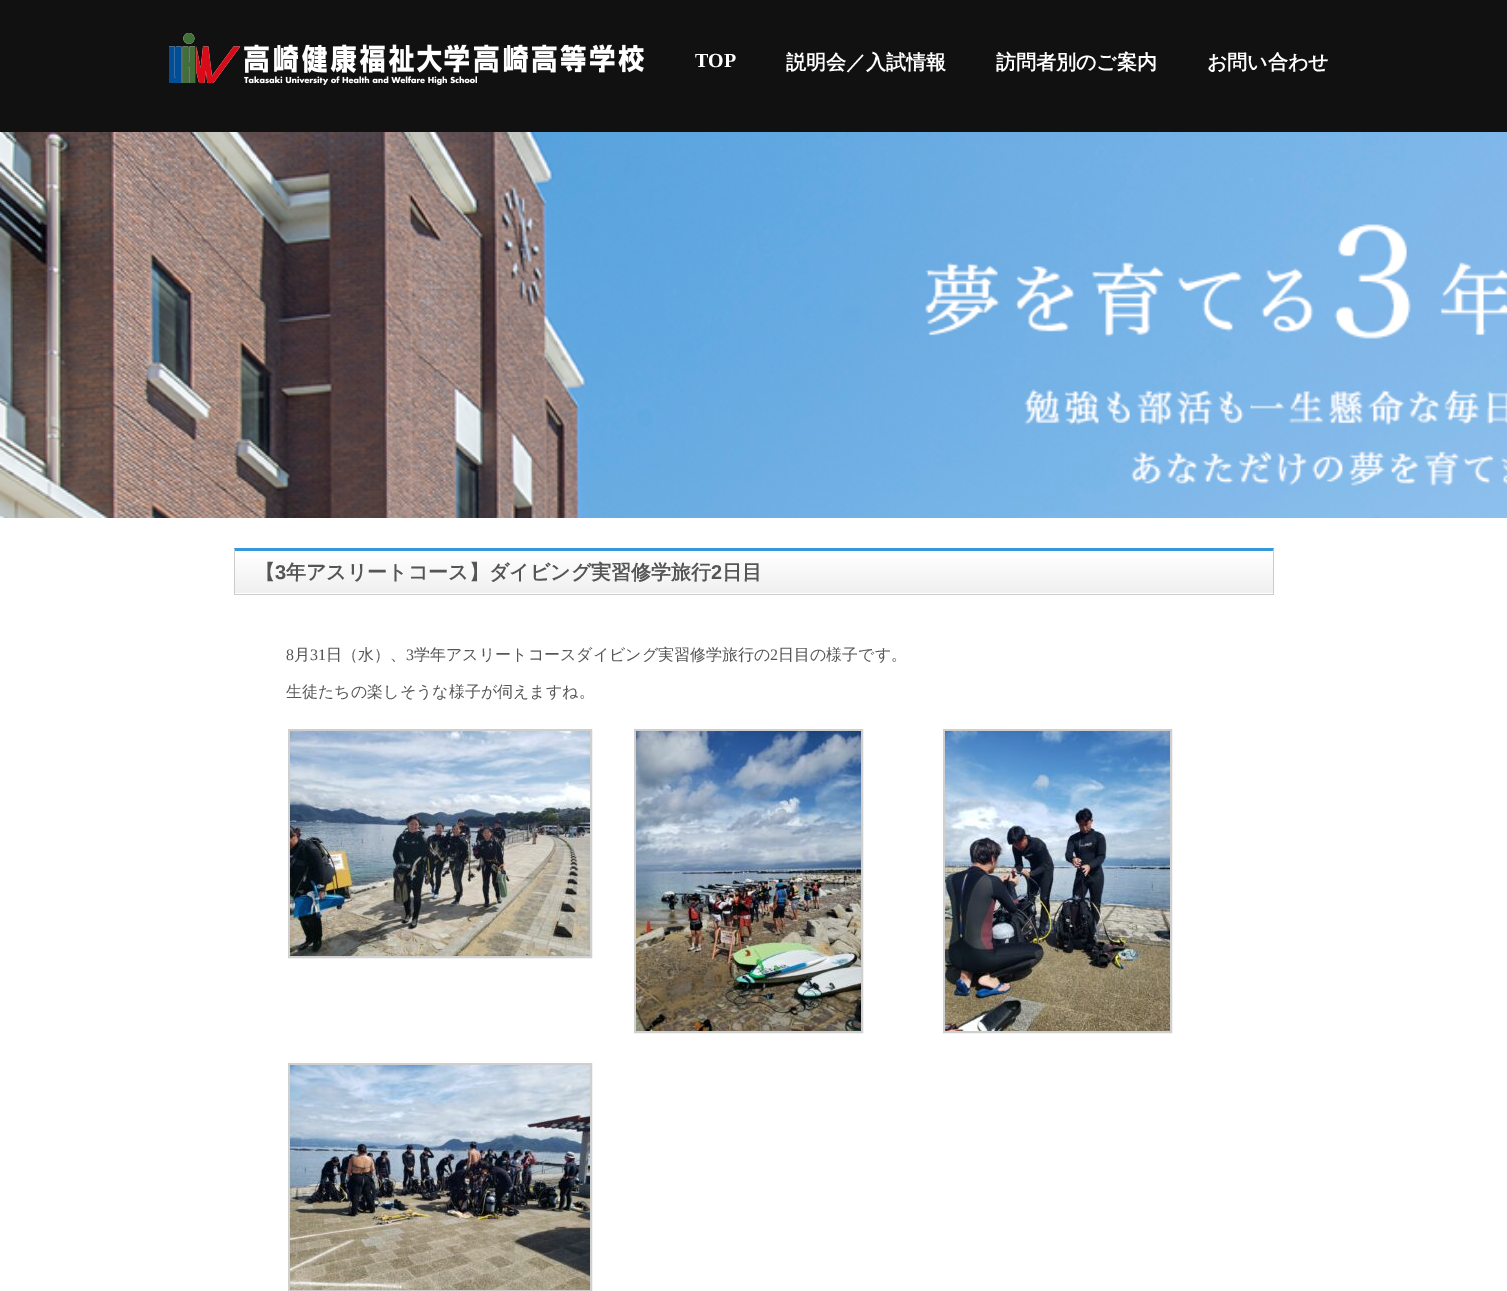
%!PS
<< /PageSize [1507 1291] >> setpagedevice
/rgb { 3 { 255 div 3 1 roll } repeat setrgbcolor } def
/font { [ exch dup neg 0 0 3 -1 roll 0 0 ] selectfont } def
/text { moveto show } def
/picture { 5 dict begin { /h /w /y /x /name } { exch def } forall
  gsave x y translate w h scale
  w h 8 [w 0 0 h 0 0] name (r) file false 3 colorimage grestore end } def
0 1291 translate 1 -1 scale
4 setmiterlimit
255 255 255 rgb
0 0 1507 1291 rectfill
17 17 17 rgb
0 0 1507 132 rectfill
(img_01.rgb) 169 33 475 52 picture
(img_02.rgb) 0 132 1507 386 picture
gsave 235 558 moveto 1038 0 rlineto 0 35 rlineto -1038 0 rlineto closepath clip newpath
<< /ShadingType 2 /ColorSpace /DeviceRGB /Coords [754 551 754 594] /Extend [true true] /Function << /FunctionType 2 /Domain [0 1] /C0 [1 1 1] /C1 [0.941 0.941 0.941] /N 1 >> >> shfill grestore
52 152 219 rgb
234 548 moveto 1040 0 rlineto -1 3 rlineto -1038 0 rlineto closepath fill
204 204 204 rgb
1274 548 moveto 0 47 rlineto -1 -1 rlineto 0 -43 rlineto closepath fill
234 594 1040 1 rectfill
234 595 moveto 0 -47 rlineto 1 3 rlineto 0 43 rlineto closepath fill
207 207 207 rgb
2 setlinewidth
289 730 302 227 rectstroke
(img_03.rgb) 290 731 300 225 picture
635 730 227 302 rectstroke
(img_04.rgb) 636 731 225 300 picture
944 730 227 302 rectstroke
(img_05.rgb) 945 731 225 300 picture
289 1064 302 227 rectstroke
(img_06.rgb) 290 1065 300 225 picture
/LiberationSerif-Bold 20 font
255 255 255 rgb
(TOP) 695 67 text
/WenQuanYiZenHei-Bold 20 font
(説明会／入試情報) 786 69 text
(訪問者別のご案内) 996 69 text
(お問い合わせ) 1207 69 text
85 85 85 rgb
(【) 255 579 text
/LiberationSans-Bold 20 font
(3) 275 579 text
/WenQuanYiZenHei-Bold 20 font
(年アスリートコース】ダイビング実習修学旅行) 286 579 text
/LiberationSans-Bold 20 font
(2) 711 579 text
/WenQuanYiZenHei-Bold 20 font
(日目) 722 579 text
/LiberationSerif-Regular 16 font
(8) 286 660 text
/WenQuanYiZenHei-Medium 16 font
(月) 294 660 text
/LiberationSerif-Regular 16 font
(31) 310 660 text
/WenQuanYiZenHei-Medium 16 font
(日（水）、) 326 660 text
/LiberationSerif-Regular 16 font
(3) 406 660 text
/WenQuanYiZenHei-Medium 16 font
(学年アスリートコースダイビング実習修学旅行の) 414 660 text
/LiberationSerif-Regular 16 font
(2) 770 660 text
/WenQuanYiZenHei-Medium 16 font
(日目の様子です。) 778 660 text
(生徒たちの楽しそうな様子が伺えますね。) 286 697 text
showpage
